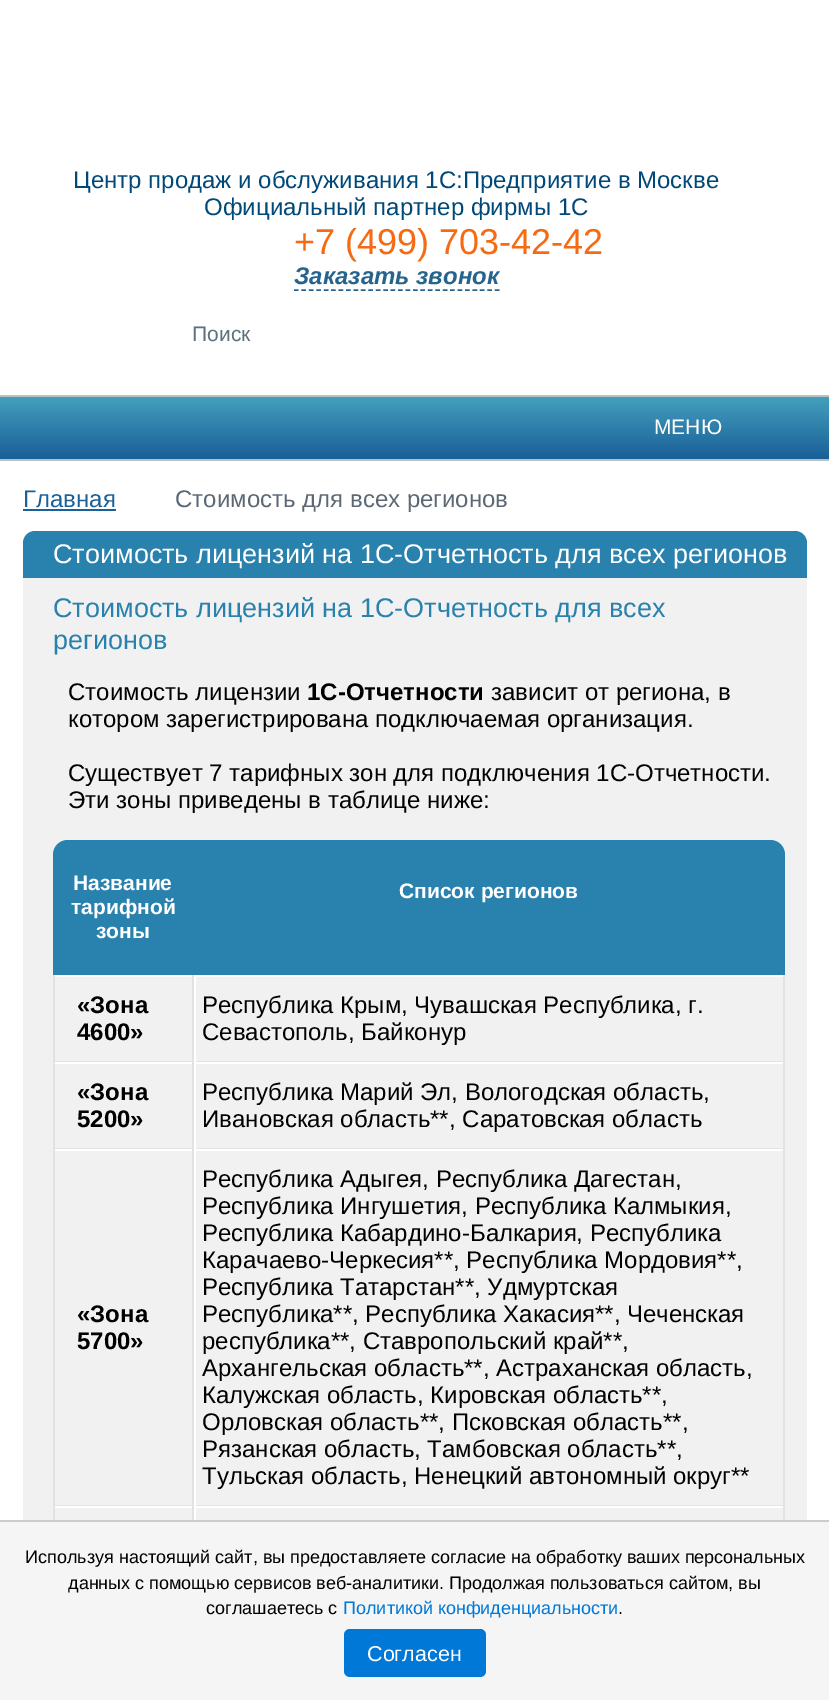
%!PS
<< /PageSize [829 1700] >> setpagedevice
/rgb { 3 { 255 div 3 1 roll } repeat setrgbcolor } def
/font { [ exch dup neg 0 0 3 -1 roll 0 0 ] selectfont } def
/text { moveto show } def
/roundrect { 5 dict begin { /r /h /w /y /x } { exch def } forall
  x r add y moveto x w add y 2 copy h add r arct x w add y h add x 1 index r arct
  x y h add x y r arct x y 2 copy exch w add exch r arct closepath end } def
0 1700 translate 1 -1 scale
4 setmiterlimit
255 255 255 rgb
0 0 829 1700 rectfill
39 100 141 rgb
1.5 setlinewidth
[4.5 2.94] 0 setdash
294 290 moveto 205.5 0 rlineto stroke
gsave 0 397 moveto 829 0 rlineto 0 62 rlineto -829 0 rlineto closepath clip newpath
<< /ShadingType 2 /ColorSpace /DeviceRGB /Coords [415 396 415 459] /Extend [true true] /Function << /FunctionType 2 /Domain [0 1] /C0 [0.267 0.627 0.745] /C1 [0.102 0.373 0.596] /N 1 >> >> shfill grestore
186 193 194 rgb
0 395 829 2 rectfill
0 459 829 2 rectfill
27 97 153 rgb
23 509 93 2 rectfill
41 129 173 rgb
35 531 moveto 760 0 rlineto 6.5 0 12 5.5 12 12 rcurveto 0 35 rlineto -784 0 rlineto 0 -35 rlineto 0 -6.5 5.5 -12 12 -12 rcurveto closepath fill
241 241 241 rgb
23 578 784 942 rectfill
41 129 173 rgb
68 840 moveto 126 0 rlineto 0 135 rlineto -141 0 rlineto 0 -120 rlineto 0 -8.5 6.5 -15 15 -15 rcurveto closepath fill
194 840 moveto 576 0 rlineto 8.5 0 15 6.5 15 15 rcurveto 0 120 rlineto -591 0 rlineto closepath fill
255 255 255 rgb
53 975 732 2 rectfill
227 225 225 rgb
192 975 2 87 rectfill
53 1061 141 1 rectfill
53 975 2 87 rectfill
783 975 2 87 rectfill
194 1061 591 1 rectfill
255 255 255 rgb
194 975 2 87 rectfill
53 1062 732 2 rectfill
227 225 225 rgb
192 1062 2 87 rectfill
53 1148 141 1 rectfill
53 1062 2 87 rectfill
783 1062 2 87 rectfill
194 1148 591 1 rectfill
255 255 255 rgb
194 1062 2 87 rectfill
53 1149 732 2 rectfill
227 225 225 rgb
192 1149 2 357 rectfill
53 1505 141 1 rectfill
53 1149 2 357 rectfill
783 1149 2 357 rectfill
194 1505 591 1 rectfill
255 255 255 rgb
194 1149 2 357 rectfill
53 1506 732 2 rectfill
227 225 225 rgb
192 1506 2 14 rectfill
53 1506 2 14 rectfill
783 1506 2 14 rectfill
255 255 255 rgb
194 1506 2 14 rectfill
245 245 245 rgb
0 1522 829 178 rectfill
204 204 204 rgb
0 1520 829 2 rectfill
0 120 215 rgb
344 1629 142 48 6 roundrect fill
/LiberationSans-Regular 24 font
0 72 120 rgb
(Центр продаж и обслуживания 1С:Предприятие в Москве) 73 188 text
(Официальный партнер фирмы 1С) 204 215 text
/LiberationSans-Regular 36 font
247 106 20 rgb
(+7 \(499\) 703-42-42) 294 254 text
/LiberationSans-BoldItalic 24 font
39 100 141 rgb
(Заказать звонок) 294 284 text
/LiberationSans-Regular 21 font
93 113 126 rgb
(Поиск) 192 341 text
255 255 255 rgb
(МЕНЮ) 654 434 text
/LiberationSans-Regular 24 font
27 97 153 rgb
(Главная) 23 507 text
92 105 117 rgb
(Стоимость для всех регионов) 175 507 text
/LiberationSans-Regular 27 font
255 255 255 rgb
(Стоимость лицензий на 1С-Отчетность для всех регионов) 53 563 text
41 129 173 rgb
(Стоимость лицензий на 1С-Отчетность для всех) 53 617 text
(регионов) 53 649 text
/LiberationSans-Regular 24 font
0 0 0 rgb
(Стоимость лицензии) 68 700 text
/LiberationSans-Bold 24 font
(1С-Отчетности) 307 700 text
/LiberationSans-Regular 24 font
(зависит от региона, в) 491 700 text
(котором зарегистрирована подключаемая организация.) 68 727 text
(Существует 7 тарифных зон для подключения 1С-Отчетности.) 68 781 text
(Эти зоны приведены в таблице ниже:) 68 808 text
/LiberationSans-Bold 21 font
255 255 255 rgb
(Название) 73 890 text
(тарифной) 71 914 text
(зоны) 96 938 text
(Список регионов) 399 898 text
/LiberationSans-Bold 24 font
0 0 0 rgb
(«Зона) 77 1013 text
(4600») 77 1040 text
/LiberationSans-Regular 24 font
(Республика Крым, Чувашская Республика, г.) 202 1013 text
(Севастополь, Байконур) 202 1040 text
/LiberationSans-Bold 24 font
(«Зона) 77 1100 text
(5200») 77 1127 text
/LiberationSans-Regular 24 font
(Республика Марий Эл, Вологодская область,) 202 1100 text
(Ивановская область**, Саратовская область) 202 1127 text
/LiberationSans-Bold 24 font
(«Зона) 77 1322 text
(5700») 77 1349 text
/LiberationSans-Regular 24 font
(Республика Адыгея, Республика Дагестан,) 202 1187 text
(Республика Ингушетия, Республика Калмыкия,) 202 1214 text
(Республика Кабардино-Балкария, Республика) 202 1241 text
(Карачаево-Черкесия**, Республика Мордовия**,) 202 1268 text
(Республика Татарстан**, Удмуртская) 202 1295 text
(Республика**, Республика Хакасия**, Чеченская) 202 1322 text
(республика**, Ставропольский край**,) 202 1349 text
(Архангельская область**, Астраханская область,) 202 1376 text
(Калужская область, Кировская область**,) 202 1403 text
(Орловская область**, Псковская область**,) 202 1430 text
(Рязанская область, Тамбовская область**,) 202 1457 text
(Тульская область, Ненецкий автономный округ**) 202 1484 text
/LiberationSans-Regular 18 font
(Используя настоящий сайт, вы предоставляете согласие на обработку ваших персональных) 25 1563 text
(данных с помощью сервисов веб-аналитики. Продолжая пользоваться сайтом, вы) 68 1589 text
(соглашаетесь с) 206 1614 text
0 120 215 rgb
(Политикой конфиденциальности) 343 1614 text
0 0 0 rgb
(.) 618 1614 text
/LiberationSans-Regular 21.5 font
255 255 255 rgb
(Согласен) 367 1661 text
showpage
